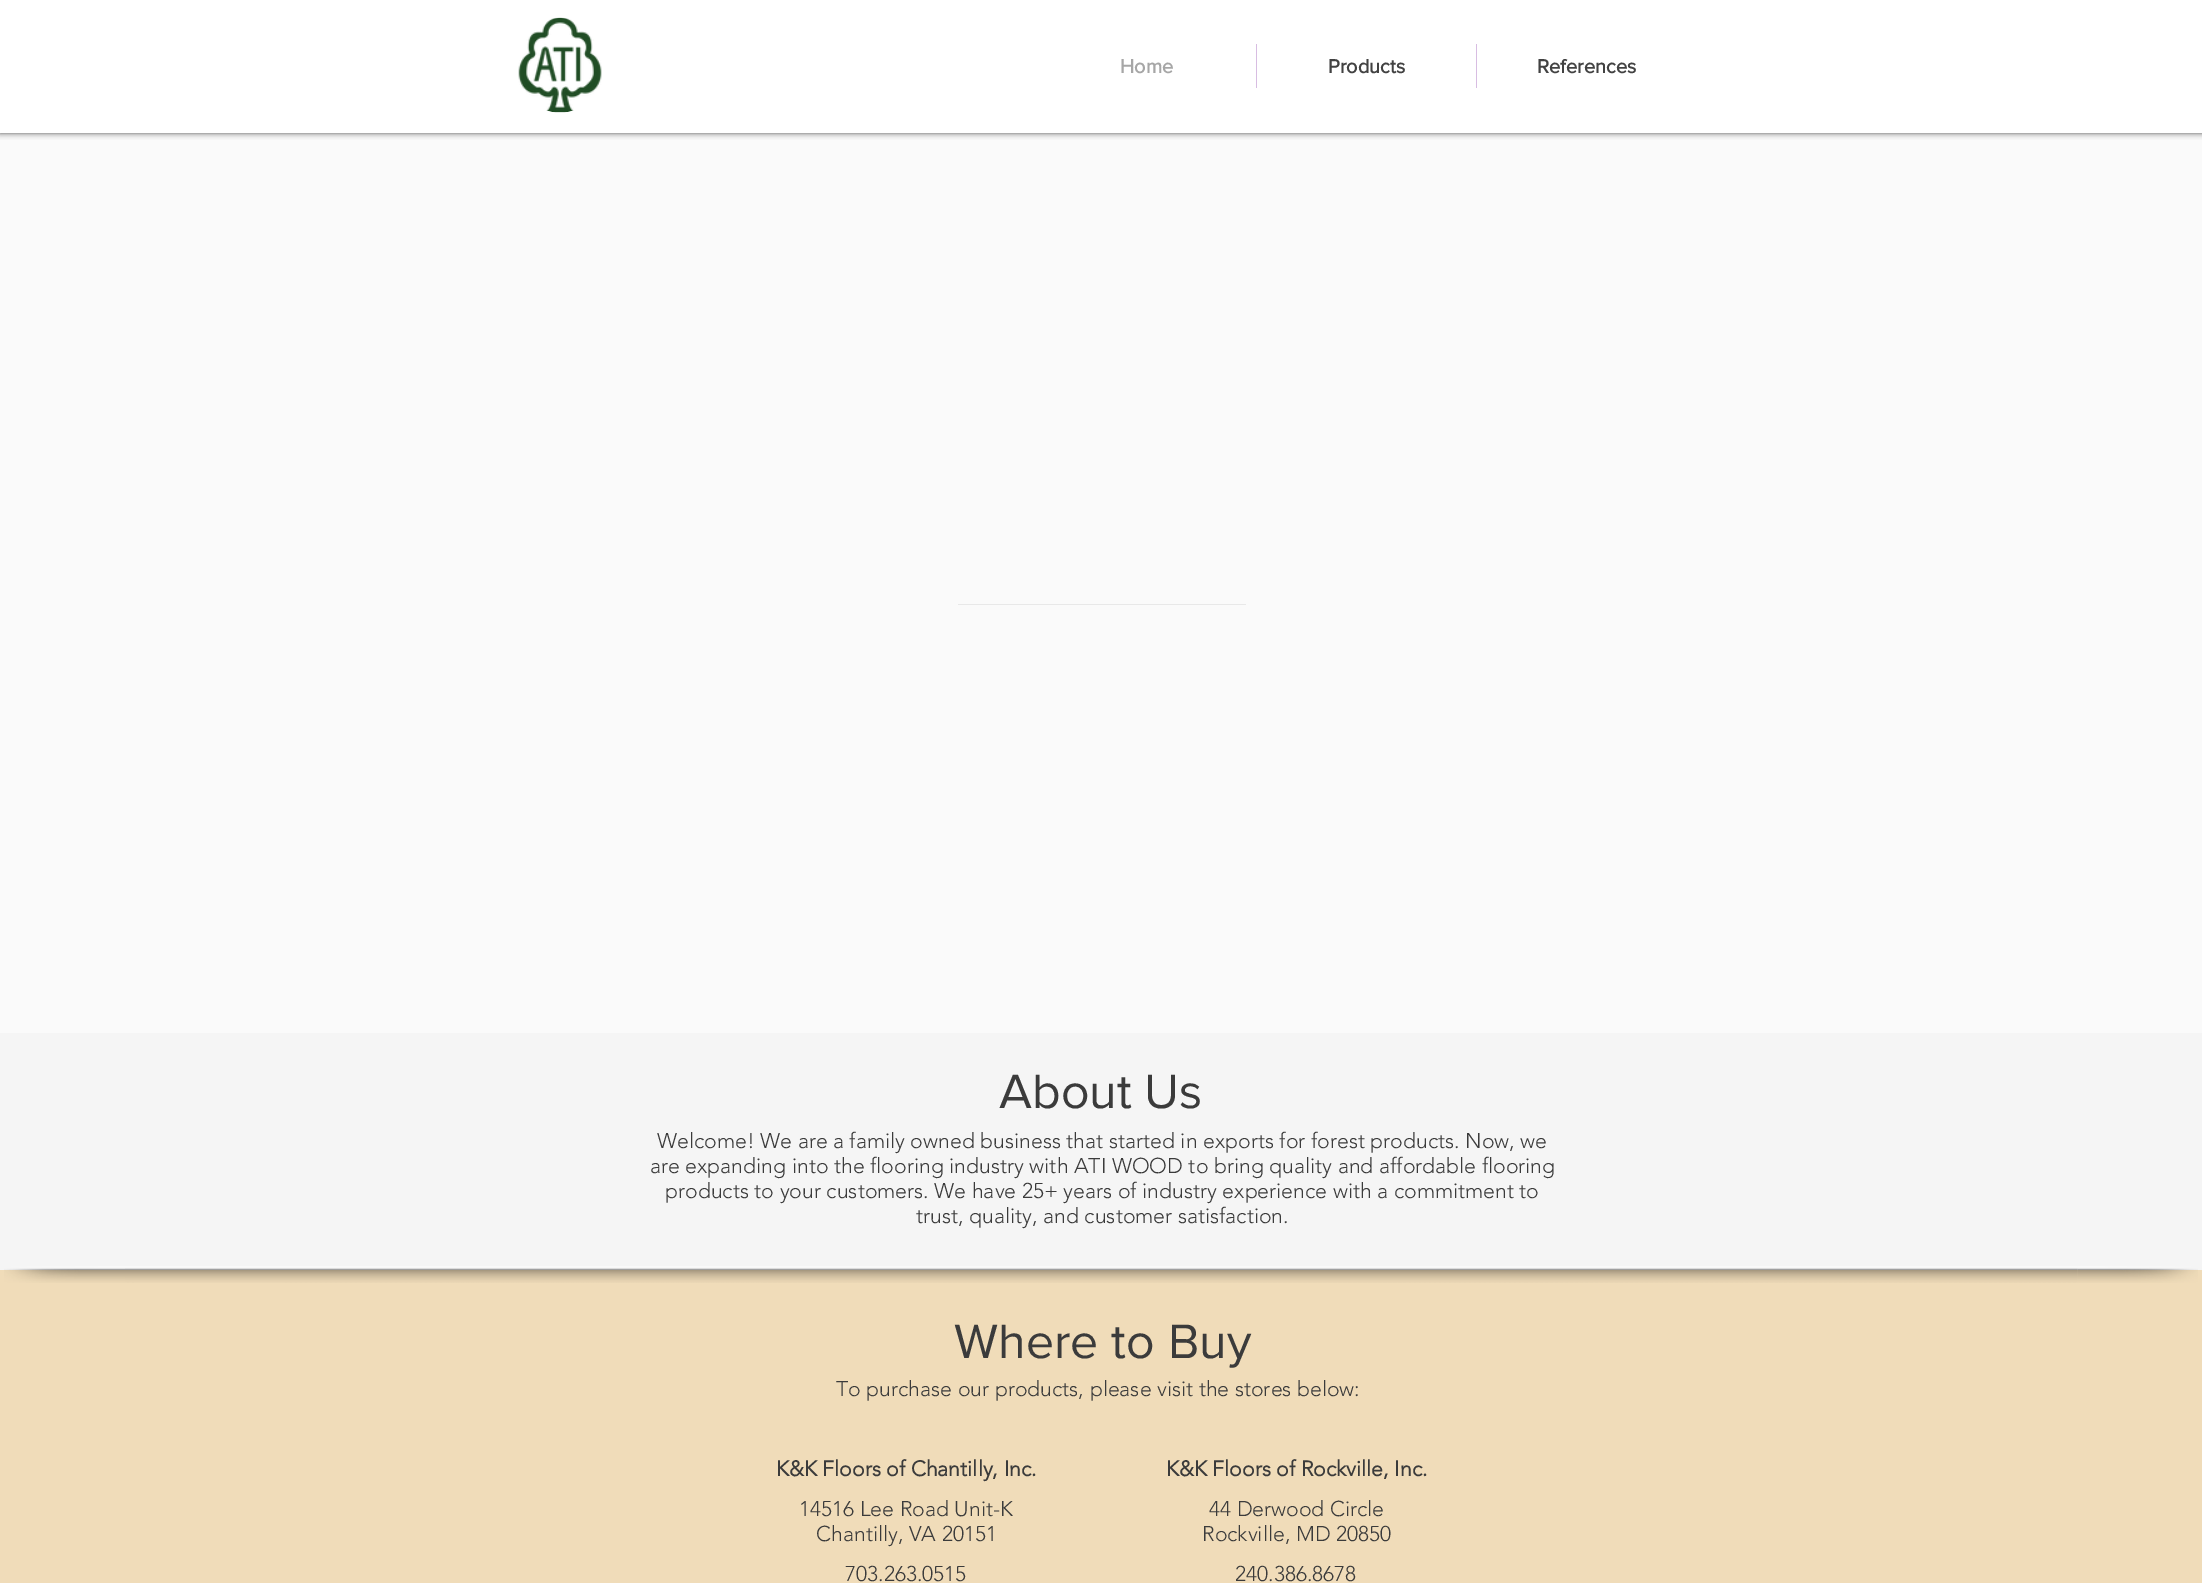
%!PS
<< /PageSize [2202 1583] /PageUsesTransparency true >> setpagedevice
/rgb { 3 { 255 div 3 1 roll } repeat setrgbcolor } def
/font { [ exch dup neg 0 0 3 -1 roll 0 0 ] selectfont } def
/text { moveto show } def
/alpha { dup .setfillconstantalpha .setstrokeconstantalpha } def
/roundrect { 5 dict begin { /r /h /w /y /x } { exch def } forall
  x r add y moveto x w add y 2 copy h add r arct x w add y h add x 1 index r arct
  x y h add x y r arct x y 2 copy exch w add exch r arct closepath end } def
/shadow { 12 dict begin { /a /b /q /h /w /y /x } { exch def } forall gsave /was 0 def
  9 -2 -9 { dup b mul 4 div /e exch def 1 sub .425 mul 2.718 exch exp 1 add a .99 .min exch div /now exch def
    1 1 now sub 1 was sub div sub alpha /was now def
    w h .min e 2 mul add 0 gt { x e sub y e sub w e 2 mul add h e 2 mul add
      q e add b .6 mul add w h .min 2 div e add .min 0 .max roundrect fill } if } for grestore end } def
/picture { 5 dict begin { /h /w /y /x /name } { exch def } forall
  gsave x y translate w h scale
  w h 8 [w 0 0 h 0 0] name (r) file false 3 colorimage grestore end } def
0 .pushpdf14devicefilter
0 1583 translate 1 -1 scale
4 setmiterlimit
250 250 250 rgb
0 0 2202 1583 rectfill
0 0 0 rgb
0 0 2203 133 0 3 0.7 shadow
255 255 255 rgb
0 0 2202 133 rectfill
(img_01.rgb) 518 17 84 96 picture
216 189 226 rgb
1256 44 1 44 rectfill
1476 44 1 44 rectfill
232 232 232 rgb
958 604 288 1 rectfill
245 245 245 rgb
0 1033 2202 237 rectfill
240 220 185 rgb
0 1270 2202 313 rectfill
(img_02.rgb) 4 1266 121 17 picture
(img_03.rgb) 125 1266 1953 17 picture
(img_04.rgb) 2077 1266 121 17 picture
/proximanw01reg-Bold 20 font
166 166 166 rgb
(Home) 1120 73 text
66 66 66 rgb
(Products) 1328 73 text
(References) 1537 73 text
/proximanw01reg-Regular 50 font
59 59 59 rgb
(About Us) 999 1108 text
/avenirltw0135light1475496-Light 21.25 font
(Welcome! We are a family owned business that started in exports for forest products. Now, we) 657 1148 text
(are expanding into the flooring industry with ATI WOOD to bring quality and affordable flooring) 650 1173 text
(products to your customers. We have 25+ years of industry experience with a commitment to) 665 1198 text
(trust, quality, and customer satisfaction.) 916 1223 text
/proximanw01reg-Regular 50 font
(Where to Buy) 954 1358 text
/avenirltw0135light1475496-Light 21.25 font
(To purchase our products, please visit the stores below:) 836 1396 text
/avenirltw0135light1475496-Bold 21.25 font
(K&K Floors of Chantilly, Inc.) 776 1476 text
/avenirltw0135light1475496-Light 21.25 font
(14516 Lee Road Unit-K) 799 1516 text
(Chantilly, VA 20151) 816 1541 text
(703.263.0515) 845 1581 text
/avenirltw0135light1475496-Bold 21.25 font
(K&K Floors of Rockville, Inc.) 1166 1476 text
/avenirltw0135light1475496-Light 21.25 font
(44 Derwood Circle) 1209 1516 text
(Rockville, MD 20850) 1202 1541 text
(240.386.8678) 1235 1581 text
.poppdf14devicefilter showpage
